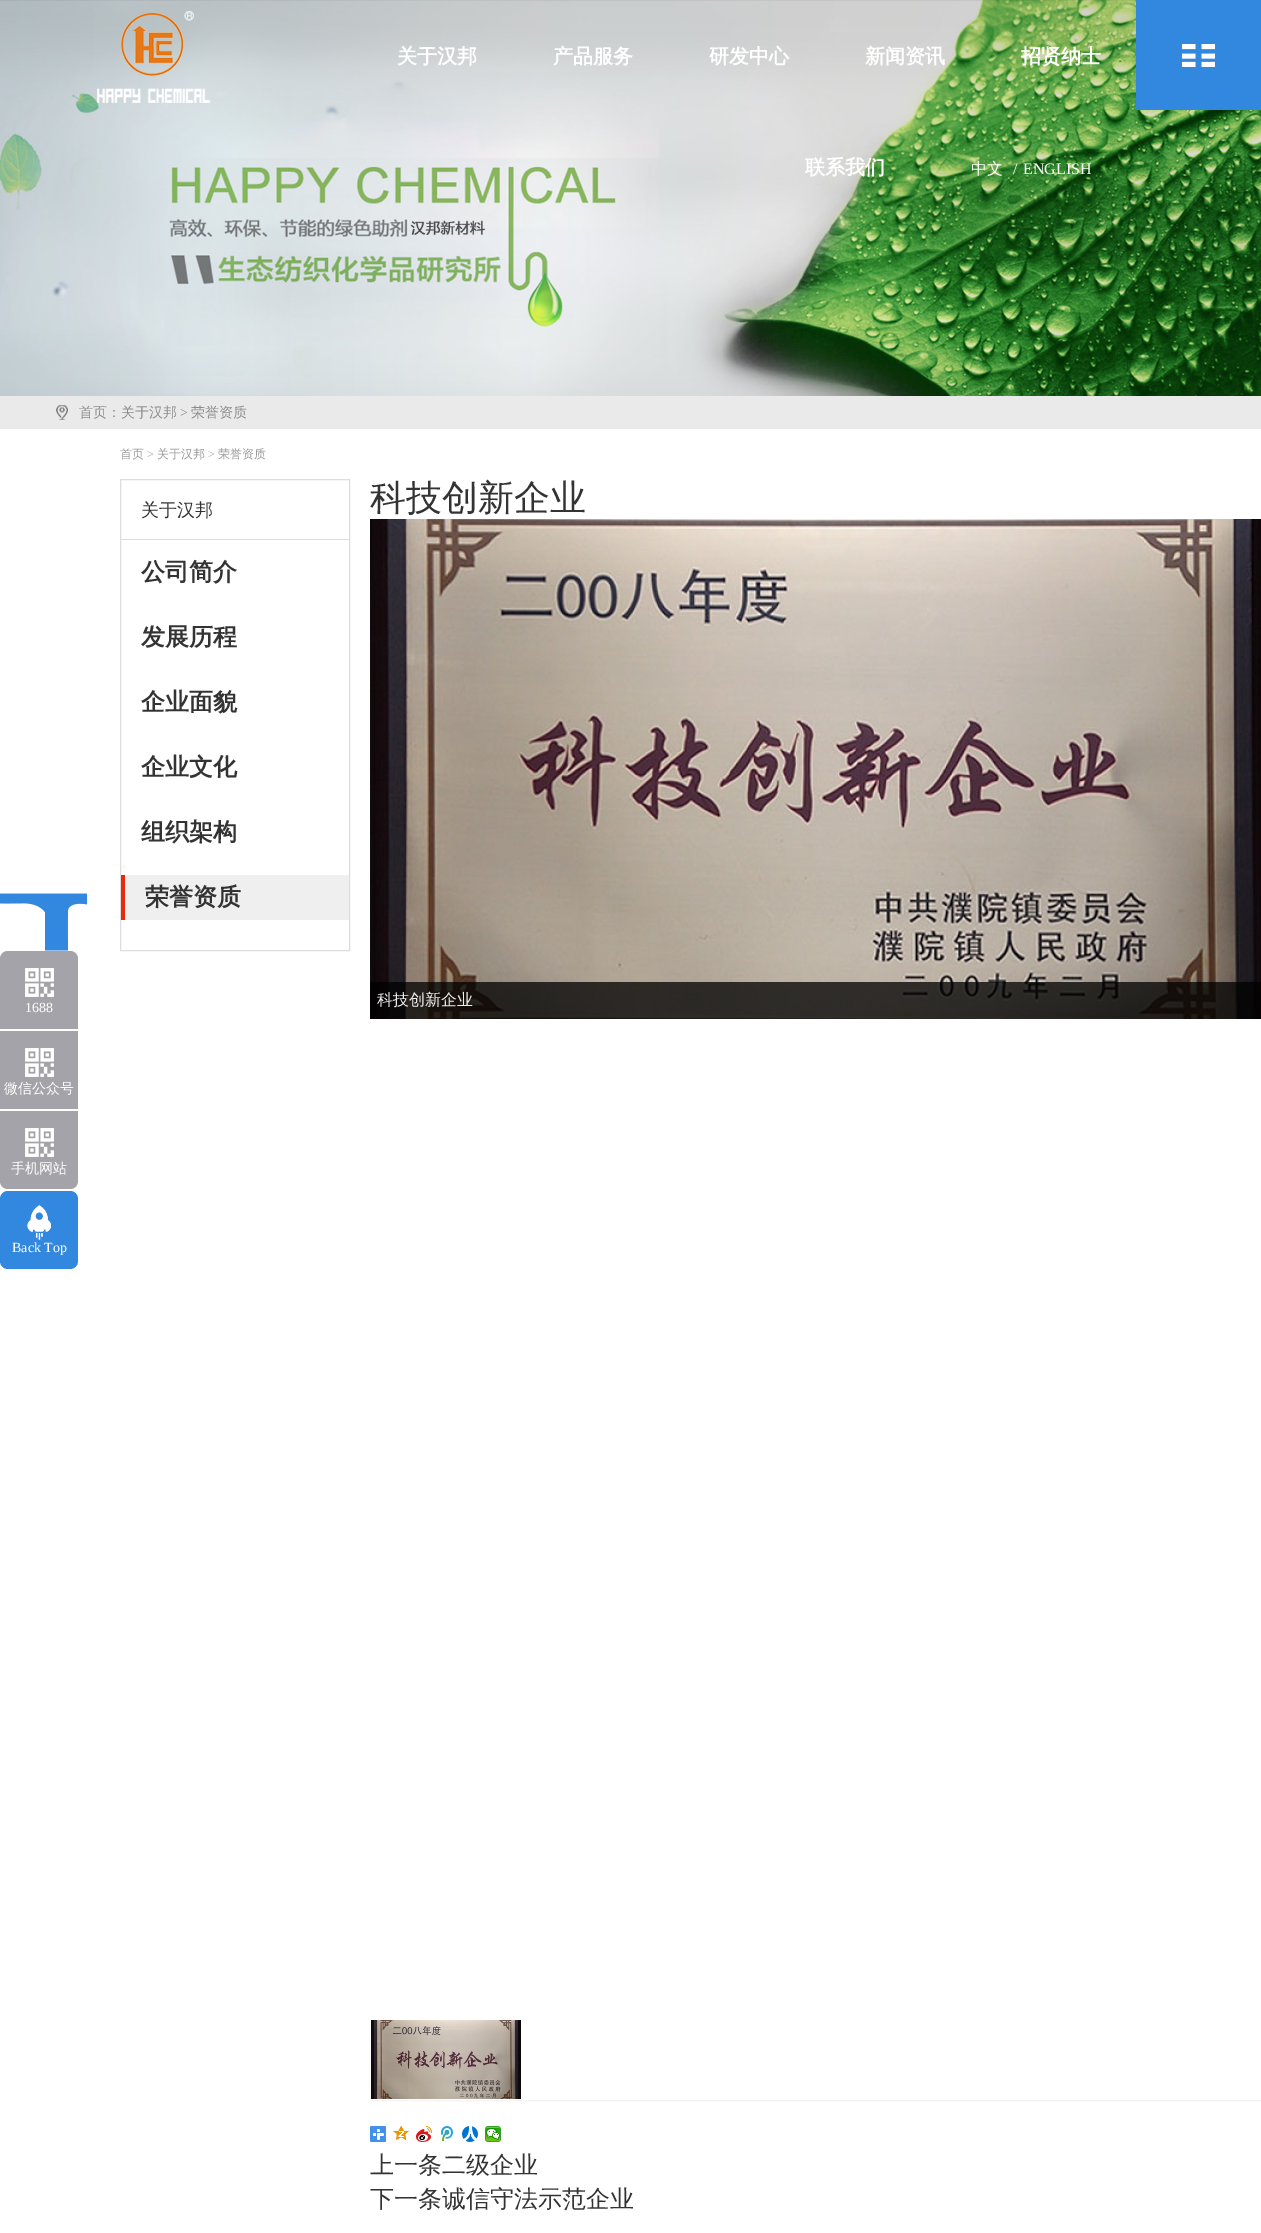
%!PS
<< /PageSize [1261 2233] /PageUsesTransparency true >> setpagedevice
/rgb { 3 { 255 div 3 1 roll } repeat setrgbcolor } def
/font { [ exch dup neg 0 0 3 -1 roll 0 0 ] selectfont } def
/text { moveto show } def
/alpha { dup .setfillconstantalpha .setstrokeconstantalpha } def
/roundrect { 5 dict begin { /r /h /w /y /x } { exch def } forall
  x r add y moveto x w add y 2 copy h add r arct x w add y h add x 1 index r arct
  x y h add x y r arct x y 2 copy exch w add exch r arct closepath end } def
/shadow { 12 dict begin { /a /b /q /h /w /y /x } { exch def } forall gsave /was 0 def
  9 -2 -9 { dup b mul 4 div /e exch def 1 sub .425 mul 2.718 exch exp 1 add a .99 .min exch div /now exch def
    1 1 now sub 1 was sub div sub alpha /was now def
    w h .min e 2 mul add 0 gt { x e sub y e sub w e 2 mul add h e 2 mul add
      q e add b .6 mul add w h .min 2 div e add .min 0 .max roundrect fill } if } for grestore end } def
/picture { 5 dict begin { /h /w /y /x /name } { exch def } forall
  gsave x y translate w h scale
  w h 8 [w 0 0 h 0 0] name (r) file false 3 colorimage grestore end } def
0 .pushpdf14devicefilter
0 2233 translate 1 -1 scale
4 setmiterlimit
255 255 255 rgb
0 0 1261 2233 rectfill
(img_01.rgb) 0 0 1261 396 picture
(img_02.rgb) 97 11 113 92 picture
50 135 222 rgb
1136 0 125 110 rectfill
(img_03.rgb) 1182 44 33 23 picture
234 234 234 rgb
0 396 1261 33 rectfill
(img_04.rgb) 56 405 12 15 picture
(img_05.rgb) 0 893 87 58 picture
164 163 169 rgb
8 951 moveto 62 0 rlineto 4.5 0 8 3.5 8 8 rcurveto 0 70 rlineto -78 0 rlineto 0 -70 rlineto 0 -4.5 3.5 -8 8 -8 rcurveto closepath fill
(img_06.rgb) 25 968 29 29 picture
0 1031 78 78 rectfill
(img_06.rgb) 25 1048 29 29 picture
0 1111 moveto 78 0 rlineto 0 70 rlineto 0 4.5 -3.5 8 -8 8 rcurveto -62 0 rlineto -4.5 0 -8 -3.5 -8 -8 rcurveto closepath fill
(img_06.rgb) 25 1128 29 29 picture
50 135 222 rgb
0 1191 78 78 8 roundrect fill
(img_07.rgb) 27 1205 24 35 picture
221 221 221 rgb
120.5 479.5 229 471 rectstroke
121 539 228 1 rectfill
239 239 239 rgb
125 875 224 45 rectfill
233 40 12 rgb
121 875 4 45 rectfill
(img_08.rgb) 370 519 891 500 picture
0.75 alpha
0 0 0 rgb
370 982 891 37 rectfill
1 alpha
370 2020 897 81 4 0.5 0.05 shadow
255 255 255 rgb
370 2019 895 81 4 roundrect fill
(img_09.rgb) 371 2020 150 79 picture
(img_10.rgb) 370 2126 16 16 picture
(img_11.rgb) 393 2126 16 14 picture
(img_12.rgb) 416 2126 16 16 picture
(img_13.rgb) 441 2126 12 15 picture
(img_14.rgb) 462 2126 16 16 picture
(img_15.rgb) 485 2126 16 16 picture
/WenQuanYiZenHei-Bold 20 font
(关于汉邦) 397 63 text
(产品服务) 553 63 text
(研发中心) 709 63 text
(新闻资讯) 865 63 text
(招贤纳士) 1021 63 text
(联系我们) 805 174 text
/WenQuanYiZenHei-Medium 16 font
(中文) 971 174 text
/LiberationSerif-Regular 16 font
(/) 1013 174 text
(ENGLISH) 1023 174 text
/WenQuanYiZenHei-Medium 14 font
139 139 138 rgb
(首页：关于汉邦) 79 417 text
/LiberationSerif-Regular 14 font
(>) 180 417 text
/WenQuanYiZenHei-Medium 14 font
(荣誉资质) 191 417 text
/LiberationSerif-Regular 14 font
255 255 255 rgb
(1688) 25 1012 text
/WenQuanYiZenHei-Medium 14 font
(微信公众号) 4 1093 text
(手机网站) 11 1173 text
/LiberationSerif-Regular 14 font
(Back Top) 12 1252 text
/WenQuanYiZenHei-Medium 12 font
153 153 153 rgb
(首页) 120 458 text
/LiberationSerif-Regular 12 font
170 170 170 rgb
(>) 147 458 text
/WenQuanYiZenHei-Medium 12 font
153 153 153 rgb
(关于汉邦) 157 458 text
/LiberationSerif-Regular 12 font
170 170 170 rgb
(>) 208 458 text
/WenQuanYiZenHei-Medium 12 font
153 153 153 rgb
(荣誉资质) 218 458 text
/WenQuanYiZenHei-Medium 18 font
51 51 51 rgb
(关于汉邦) 141 516 text
/WenQuanYiZenHei-Bold 24 font
(公司简介) 141 580 text
(发展历程) 141 645 text
(企业面貌) 141 710 text
(企业文化) 141 775 text
(组织架构) 141 840 text
(荣誉资质) 145 905 text
/WenQuanYiZenHei-Medium 36 font
(科技创新企业) 370 510 text
/WenQuanYiZenHei-Medium 16 font
239 239 239 rgb
(科技创新企业) 377 1005 text
/WenQuanYiZenHei-Medium 24 font
51 51 51 rgb
(上一条二级企业) 370 2173 text
(下一条诚信守法示范企业) 370 2207 text
.poppdf14devicefilter showpage
